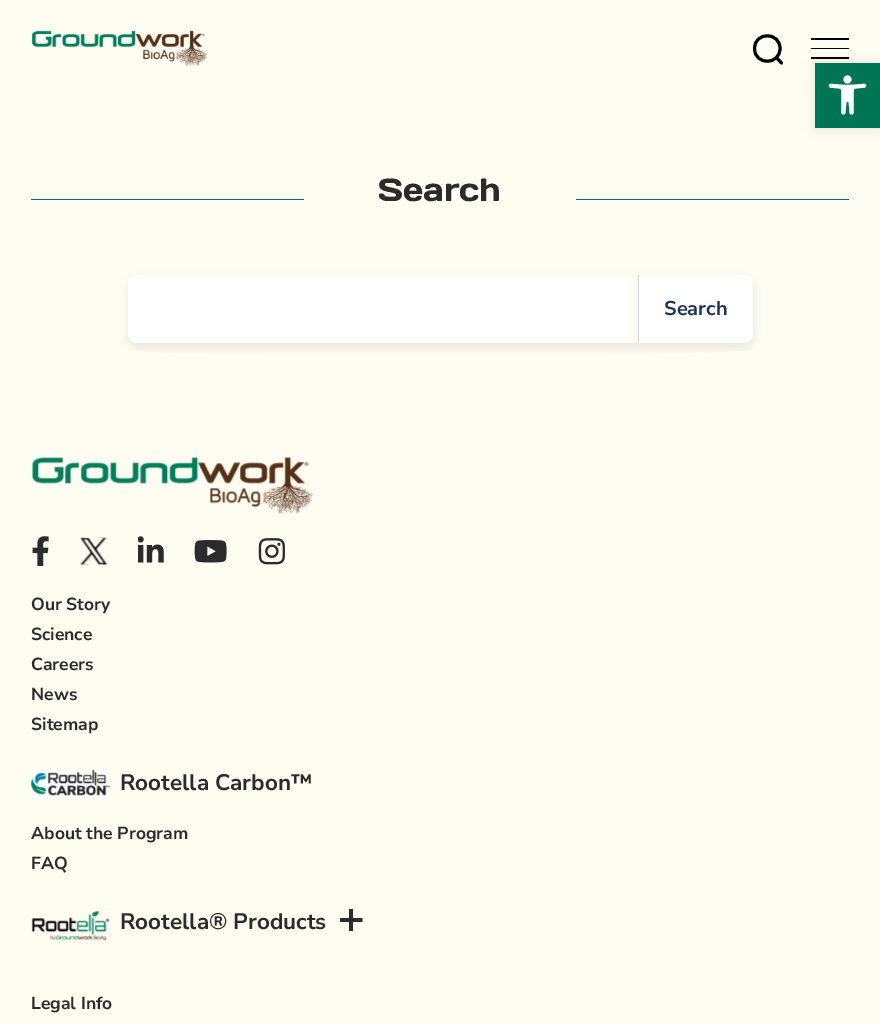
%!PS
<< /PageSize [880 1023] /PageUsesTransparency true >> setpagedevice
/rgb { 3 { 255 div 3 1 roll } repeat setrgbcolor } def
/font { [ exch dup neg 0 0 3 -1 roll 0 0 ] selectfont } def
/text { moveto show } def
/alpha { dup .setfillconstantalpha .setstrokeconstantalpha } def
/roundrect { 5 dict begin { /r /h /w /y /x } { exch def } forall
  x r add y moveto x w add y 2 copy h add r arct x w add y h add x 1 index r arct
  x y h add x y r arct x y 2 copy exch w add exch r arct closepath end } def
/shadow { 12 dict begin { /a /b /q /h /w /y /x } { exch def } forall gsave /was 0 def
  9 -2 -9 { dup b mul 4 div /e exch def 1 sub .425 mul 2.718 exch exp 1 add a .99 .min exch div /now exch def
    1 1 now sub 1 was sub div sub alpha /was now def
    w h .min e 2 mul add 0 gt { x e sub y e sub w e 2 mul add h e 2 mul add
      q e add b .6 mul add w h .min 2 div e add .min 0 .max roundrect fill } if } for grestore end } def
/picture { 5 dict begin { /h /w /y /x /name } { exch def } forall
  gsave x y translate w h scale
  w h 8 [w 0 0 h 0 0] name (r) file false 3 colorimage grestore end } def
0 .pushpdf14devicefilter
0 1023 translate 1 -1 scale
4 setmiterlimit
255 252 241 rgb
0 0 880 1023 rectfill
0 0 0 rgb
811 48 38 1 rectfill
811 57 38 2 rectfill
815 63 65 65 0 6 0.1 shadow
0 117 85 rgb
815 63 65 65 rectfill
(img_01.rgb) 828 75 39 40 picture
(img_02.rgb) 31 30 177 36 picture
0 0 0 rgb
3 setlinewidth
1 setlinecap
1 setlinejoin
781.5 63 moveto -5 -5.5 rlineto 780 48.5 moveto 0 17 -25.5 17 -25.5 0 rcurveto 0 -17 25.5 -17 25.5 0 rcurveto closepath stroke
811 38 38 2 rectfill
0 117 85 rgb
31 199 818 1 rectfill
254 252 241 rgb
304 199 272 1 rectfill
gsave
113 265 moveto 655 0 rlineto 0 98 rlineto -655 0 rlineto closepath 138 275 moveto 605 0 rlineto 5.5 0 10 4.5 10 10 rcurveto 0 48 rlineto 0 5.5 -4.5 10 -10 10 rcurveto -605 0 rlineto -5.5 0 -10 -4.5 -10 -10 rcurveto 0 -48 rlineto 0 -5.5 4.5 -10 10 -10 rcurveto closepath eoclip newpath
0 0 0 rgb
128 280 625 68 10 4.5 0.08 shadow
grestore
255 255 255 rgb
138 275 moveto 487 0 rlineto 0 68 rlineto -487 0 rlineto -5.5 0 -10 -4.5 -10 -10 rcurveto 0 -48 rlineto 0 -5.5 4.5 -10 10 -10 rcurveto closepath fill
638 275 moveto 105 0 rlineto 5.5 0 10 4.5 10 10 rcurveto 0 48 rlineto 0 5.5 -4.5 10 -10 10 rcurveto -105 0 rlineto closepath fill
213 213 213 rgb
638 275 1 68 rectfill
gsave
0 343 880 87 rectclip
255 252 241 rgb
0 343 moveto 0 298 rlineto 880 0 rlineto 0 -299 rlineto -292 23 -588 23 -880 1 rcurveto closepath eofill
grestore
(img_03.rgb) 32 457 282 57 picture
(img_04.rgb) 32 536 17 30 picture
(img_05.rgb) 80 537 28 29 picture
(img_06.rgb) 138 536 26 27 picture
(img_07.rgb) 194 540 33 23 picture
(img_08.rgb) 258 538 27 27 picture
(img_09.rgb) 31 768 80 30 picture
(img_10.rgb) 31 910 79 31 picture
42 43 42 rgb
3.8 setlinewidth
0 setlinecap
0 setlinejoin
351 909 moveto 0 11 rlineto 351 931 moveto 0 -11 rlineto 351 920 moveto -11 0 rlineto 351 920 moveto 11.5 0 rlineto stroke
/DaysOne-Regular 32 font
(Search) 378 201 text
/NunitoSans-Bold 20 font
30 51 90 rgb
(Search) 664 315 text
/NunitoSans-Bold 17.5 font
42 43 42 rgb
(Our Story) 31 610 text
(Science) 31 640 text
(Careers) 31 670 text
(News) 31 700 text
(Sitemap) 31 730 text
/NunitoSans-Bold 22.5 font
(Rootella Carbon™) 120 790 text
/NunitoSans-Bold 17.5 font
(About the Program) 31 839 text
(FAQ) 31 869 text
/NunitoSans-Bold 22.5 font
(Rootella® Products) 120 929 text
/NunitoSans-Bold 17.5 font
(Legal Info) 31 1009 text
.poppdf14devicefilter showpage
